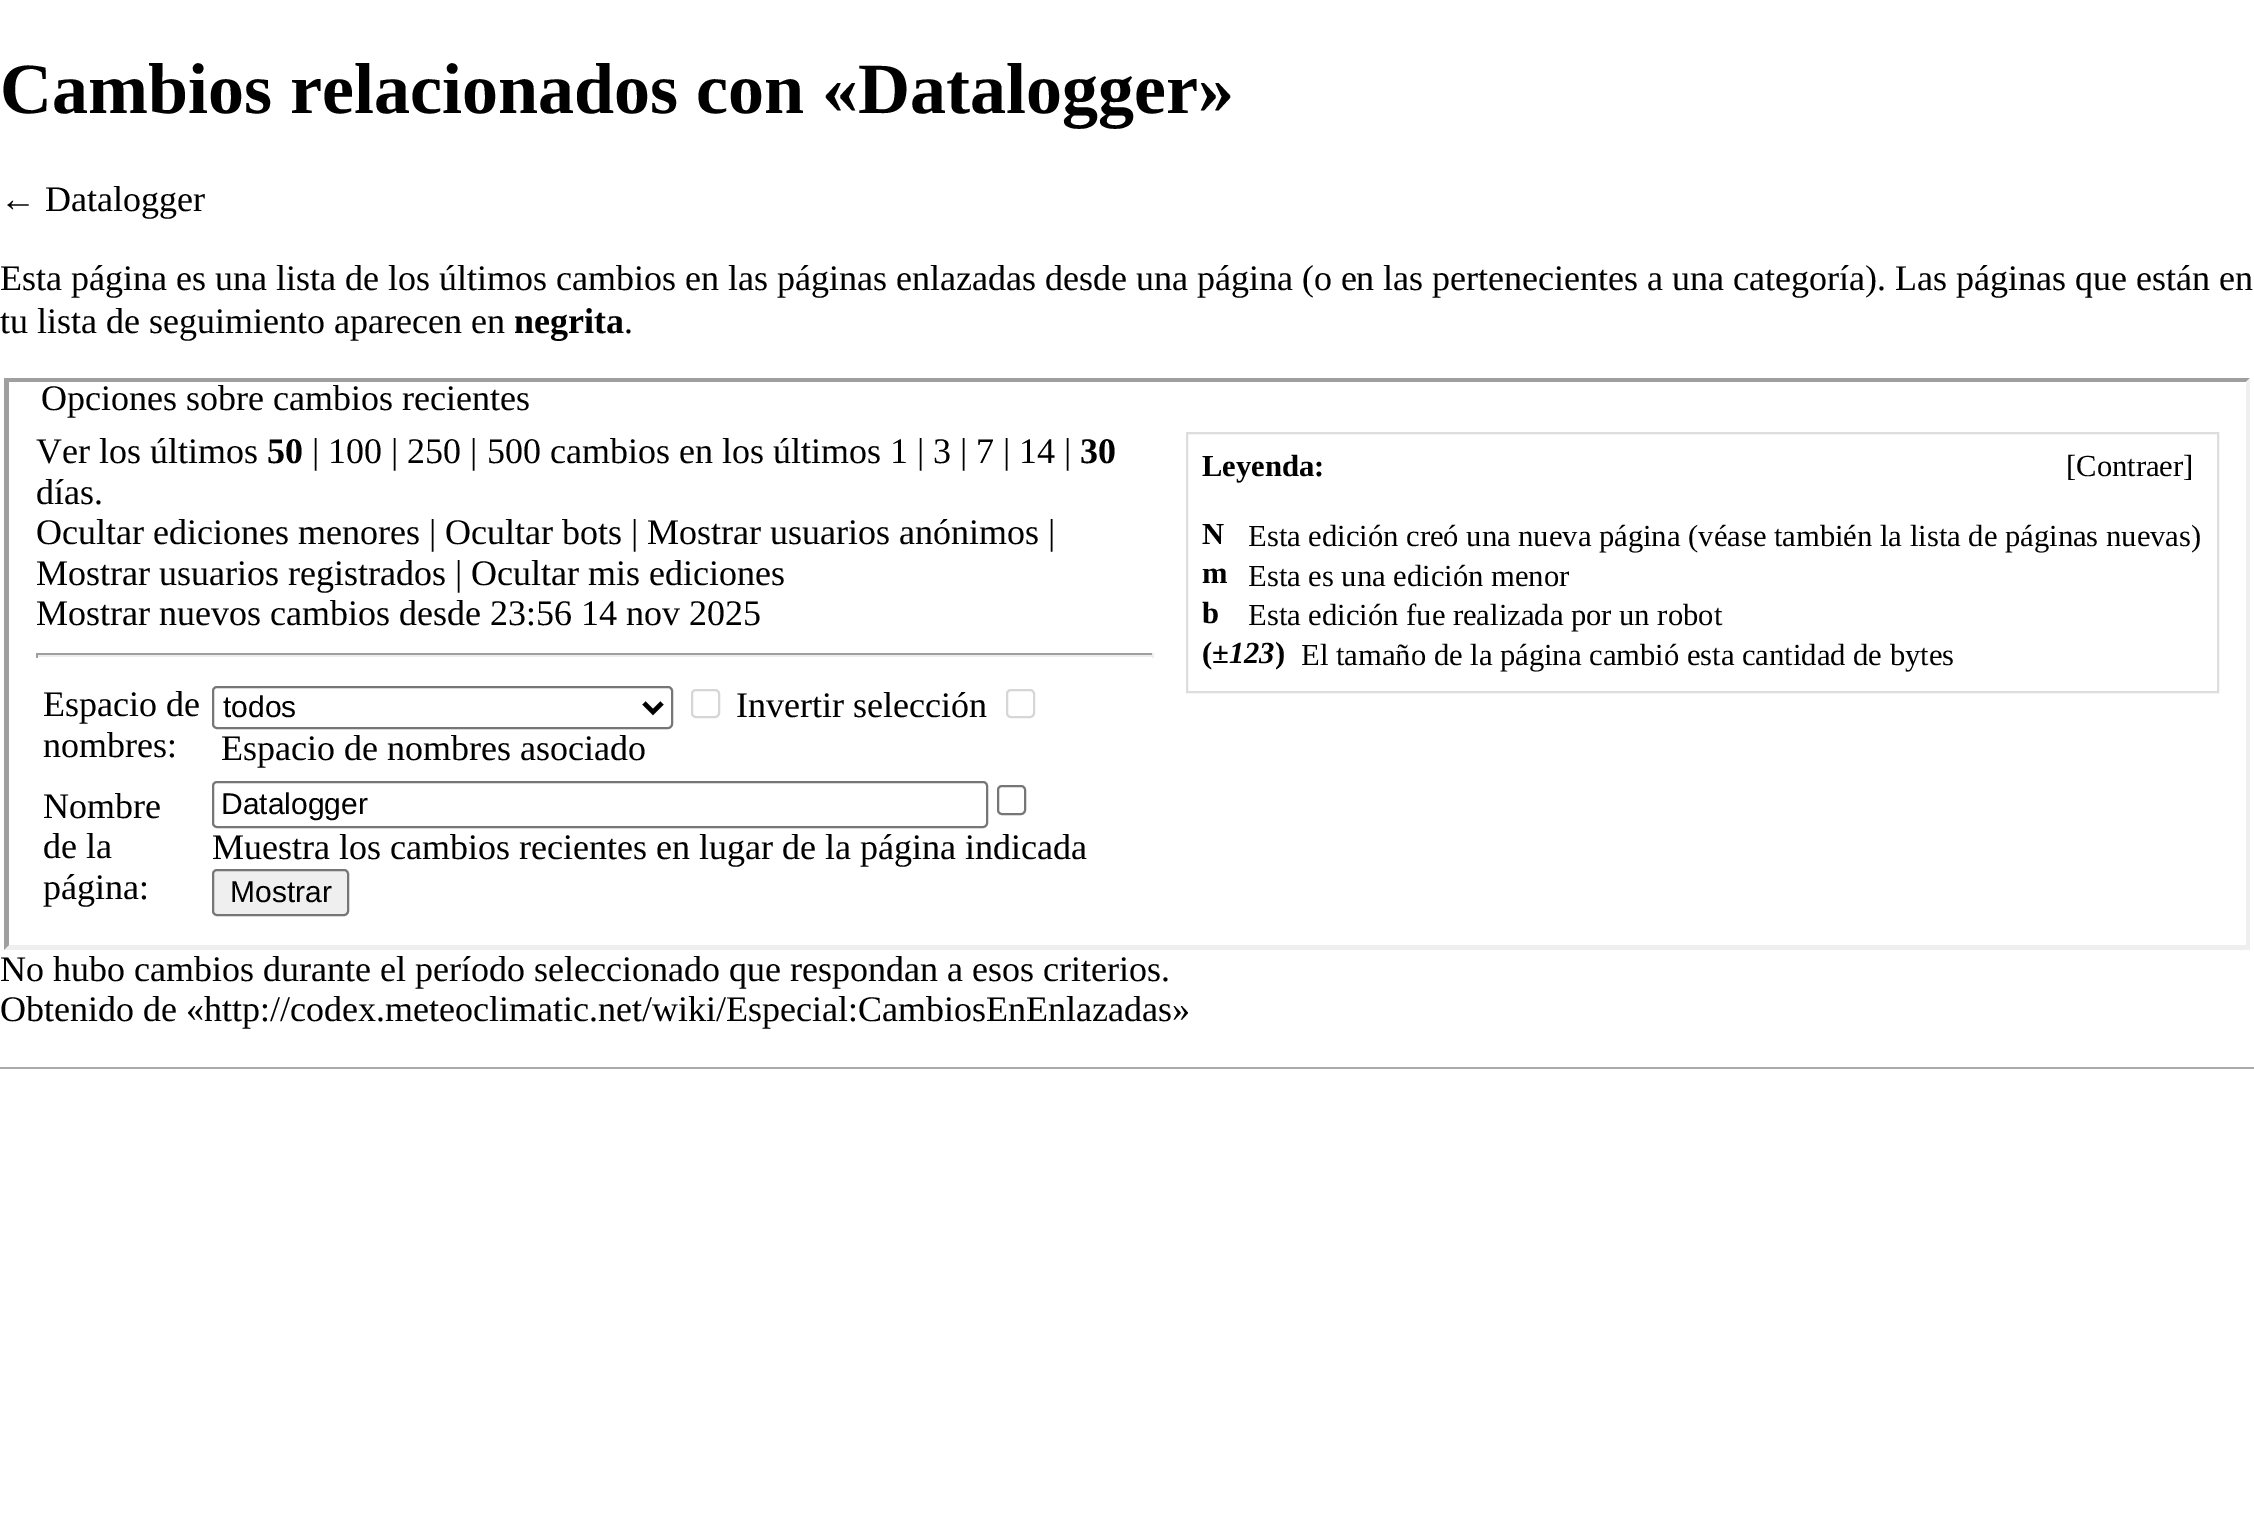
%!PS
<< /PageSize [2254 1528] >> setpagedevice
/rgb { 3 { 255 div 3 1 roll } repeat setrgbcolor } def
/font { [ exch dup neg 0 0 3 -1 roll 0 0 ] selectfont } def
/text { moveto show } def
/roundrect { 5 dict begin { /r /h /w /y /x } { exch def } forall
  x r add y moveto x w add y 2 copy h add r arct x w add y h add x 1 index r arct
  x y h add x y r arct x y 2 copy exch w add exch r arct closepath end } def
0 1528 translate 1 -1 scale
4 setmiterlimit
255 255 255 rgb
0 0 2254 1528 rectfill
159 159 159 rgb
4 378 moveto 2246 0 rlineto -4 4 rlineto -2237 0 rlineto closepath fill
239 239 239 rgb
2250 378 moveto 0 572 rlineto -4 -5 rlineto 0 -563 rlineto closepath fill
2250 950 moveto -2246 0 rlineto 5 -5 rlineto 2237 0 rlineto closepath fill
159 159 159 rgb
4 950 moveto 0 -572 rlineto 5 4 rlineto 0 563 rlineto closepath fill
221 221 221 rgb
2 setlinewidth
1187 433 1031 259 rectstroke
159 159 159 rgb
36 653 1118 2 rectfill
238 238 238 rgb
1152 653 2 5 rectfill
36 655 1118 2 rectfill
159 159 159 rgb
36 653 2 5 rectfill
118 118 118 rgb
213 687 459 41 4 roundrect stroke
0 0 0 rgb
4.5 setlinewidth
644 703 moveto 9 9 rlineto 9 -9 rlineto stroke
214 214 214 rgb
2 setlinewidth
692 690 27 27 4 roundrect stroke
1007 690 27 27 4 roundrect stroke
118 118 118 rgb
213 782 774 45 4 roundrect stroke
998 786 27 28 4 roundrect stroke
239 239 239 rgb
213 870 135 45 4 roundrect gsave fill grestore
118 118 118 rgb
stroke
170 170 170 rgb
0 1067 2254 2 rectfill
/LiberationSerif-Bold 72 font
0 0 0 rgb
(Cambios relacionados con «Datalogger») 0 113 text
/LiberationSerif-Regular 36 font
(← Datalogger) 0 211 text
(Esta página es una lista de los últimos cambios en las páginas enlazadas desde una página \(o en las pertenecientes a una categoría\). Las páginas que están en) 0 290 text
(tu lista de seguimiento aparecen en) 0 333 text
/LiberationSerif-Bold 36 font
(negrita) 514 333 text
/LiberationSerif-Regular 36 font
(.) 624 333 text
(Opciones sobre cambios recientes) 41 410 text
(Ver los últimos) 36 463 text
/LiberationSerif-Bold 36 font
(50) 267 463 text
/LiberationSerif-Regular 36 font
(| 100 | 250 | 500 cambios en los últimos 1 | 3 | 7 | 14 |) 312 463 text
/LiberationSerif-Bold 36 font
(30) 1080 463 text
/LiberationSerif-Regular 36 font
(días.) 36 504 text
/LiberationSerif-Bold 30.6 font
(Leyenda:) 1202 476 text
/LiberationSerif-Regular 30.6 font
([Contraer]) 2066 476 text
/LiberationSerif-Bold 30.6 font
(N) 1202 544 text
/LiberationSerif-Regular 30.6 font
(Esta edición creó una nueva página \(véase también la lista de páginas nuevas\)) 1248 546 text
/LiberationSerif-Bold 30.6 font
(m) 1202 583 text
/LiberationSerif-Regular 30.6 font
(Esta es una edición menor) 1248 586 text
/LiberationSerif-Bold 30.6 font
(b) 1202 623 text
/LiberationSerif-Regular 30.6 font
(Esta edición fue realizada por un robot) 1248 625 text
/LiberationSerif-Bold 30.6 font
(\() 1202 663 text
/LiberationSerif-BoldItalic 30.6 font
(±123) 1212 663 text
/LiberationSerif-Bold 30.6 font
(\)) 1275 663 text
/LiberationSerif-Regular 30.6 font
(El tamaño de la página cambió esta cantidad de bytes) 1301 665 text
/LiberationSerif-Regular 36 font
(Ocultar ediciones menores | Ocultar bots | Mostrar usuarios anónimos |) 36 544 text
(Mostrar usuarios registrados | Ocultar mis ediciones) 36 585 text
(Mostrar nuevos cambios desde 23:56 14 nov 2025) 36 625 text
(Espacio de) 43 716 text
(nombres:) 43 757 text
/LiberationSans-Regular 30 font
(todos) 223 717 text
/LiberationSerif-Regular 36 font
(Invertir selección) 736 717 text
(Espacio de nombres asociado) 221 760 text
(Nombre) 43 818 text
(de la) 43 858 text
(página:) 43 899 text
/LiberationSans-Regular 30 font
(Datalogger) 221 814 text
/LiberationSerif-Regular 36 font
(Muestra los cambios recientes en lugar de la página indicada) 212 859 text
/LiberationSans-Regular 30 font
(Mostrar) 230 902 text
/LiberationSerif-Regular 36 font
(No hubo cambios durante el período seleccionado que respondan a esos criterios.) 0 981 text
(Obtenido de «http://codex.meteoclimatic.net/wiki/Especial:CambiosEnEnlazadas») 0 1021 text
showpage
